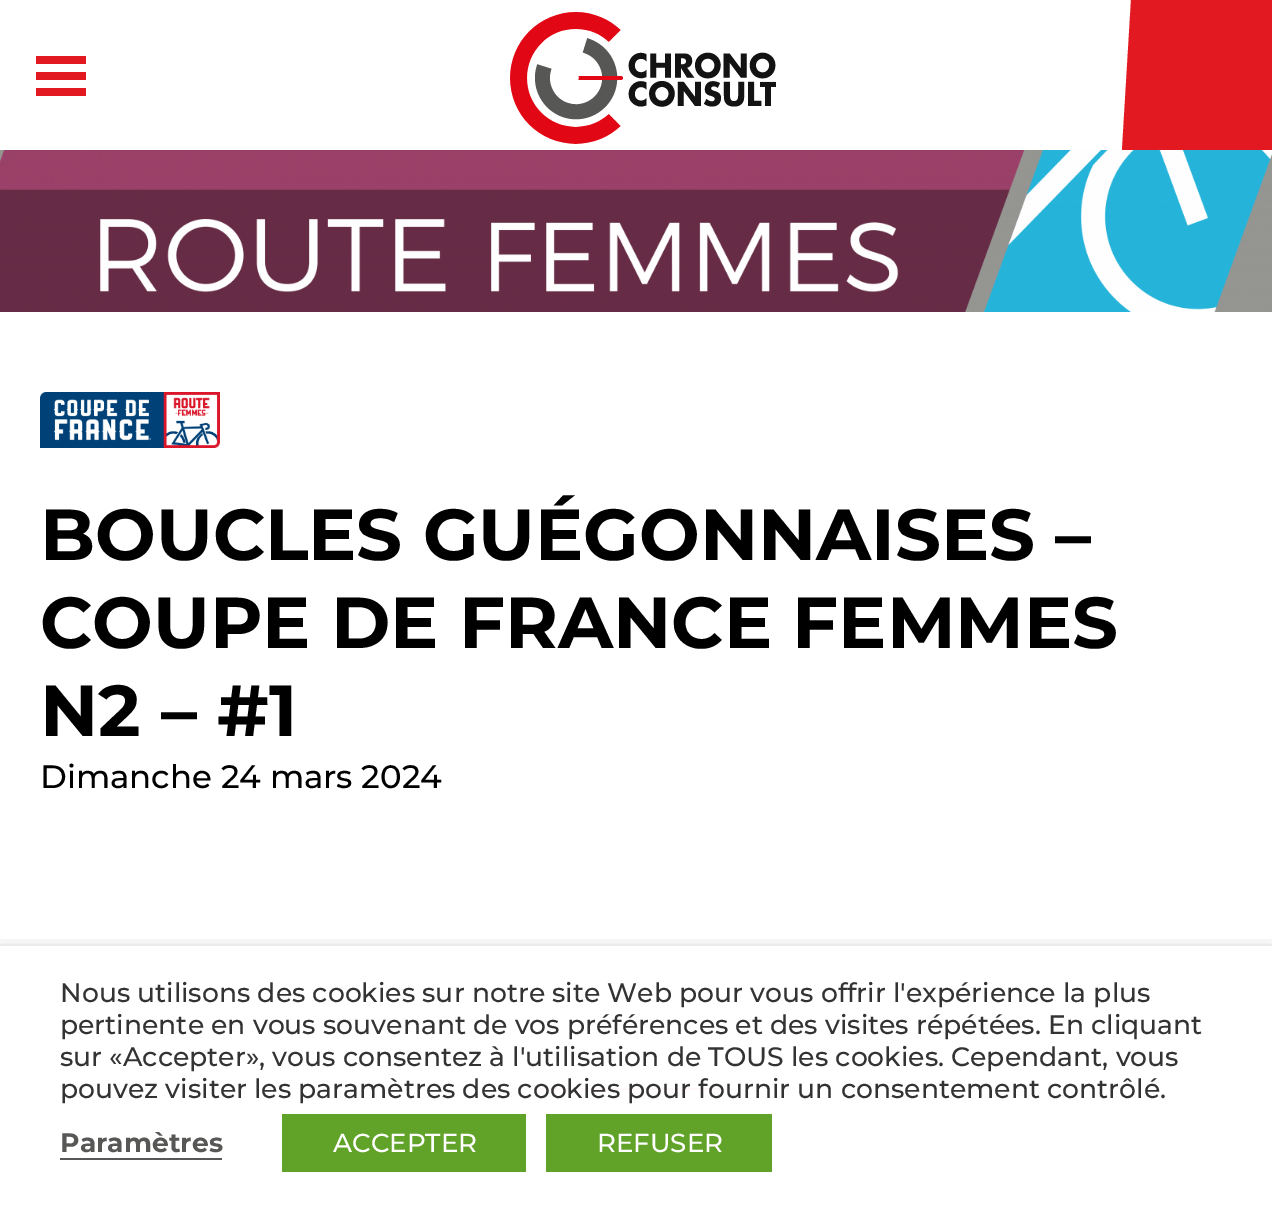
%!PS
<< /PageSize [1272 1212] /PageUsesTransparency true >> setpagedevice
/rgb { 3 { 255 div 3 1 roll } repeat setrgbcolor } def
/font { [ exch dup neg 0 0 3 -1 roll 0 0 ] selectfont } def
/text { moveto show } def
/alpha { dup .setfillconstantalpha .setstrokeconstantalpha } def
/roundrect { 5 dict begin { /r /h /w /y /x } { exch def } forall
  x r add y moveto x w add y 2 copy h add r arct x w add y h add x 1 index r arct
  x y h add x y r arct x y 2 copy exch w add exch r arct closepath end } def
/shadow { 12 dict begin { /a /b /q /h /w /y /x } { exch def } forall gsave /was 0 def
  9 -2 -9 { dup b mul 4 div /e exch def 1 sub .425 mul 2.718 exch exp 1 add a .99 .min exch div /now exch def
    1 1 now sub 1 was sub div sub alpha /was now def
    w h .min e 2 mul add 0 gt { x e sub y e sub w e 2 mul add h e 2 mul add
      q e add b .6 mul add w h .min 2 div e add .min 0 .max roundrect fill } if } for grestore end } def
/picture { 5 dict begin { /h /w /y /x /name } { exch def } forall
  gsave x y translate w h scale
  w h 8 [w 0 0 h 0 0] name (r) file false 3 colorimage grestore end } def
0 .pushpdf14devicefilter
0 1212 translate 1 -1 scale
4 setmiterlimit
255 255 255 rgb
0 0 1272 1212 rectfill
227 25 33 rgb
36 72 50 8 rectfill
36 56 50 8 rectfill
36 88 50 8 rectfill
(img_01.rgb) 510 12 266 132 picture
1131 0 moveto -9 150 rlineto 150 0 rlineto 0 -150 rlineto closepath fill
149 149 146 rgb
0 150 1272 162 rectfill
(img_02.rgb) 0 150 1272 162 picture
(img_03.rgb) 40 392 180 56 picture
254 248 248 rgb
538 1088 196 2 rectfill
gsave
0 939 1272 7 rectclip
0 0 0 rgb
0 956 1272 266 0 10 0.5 shadow
grestore
87 87 86 rgb
60 1158 162 2 rectfill
97 162 41 rgb
282 1114 244 58 rectfill
546 1114 226 58 rectfill
/Montserrat-Bold 72 font
0 0 0 rgb
(BOUCLES GUÉGONNAISES –) 40 560 text
(COUPE DE FRANCE FEMMES) 40 648 text
(N2 – #1) 40 736 text
/Montserrat-Medium 32.4 font
(Dimanche 24 mars 2024) 40 788 text
/Montserrat-Medium 26.65 font
51 51 51 rgb
(Nous utilisons des cookies sur notre site Web pour vous offrir l'expérience la plus) 60 1002 text
(pertinente en vous souvenant de vos préférences et des visites répétées. En cliquant) 60 1034 text
(sur «Accepter», vous consentez à l'utilisation de TOUS les cookies. Cependant, vous) 60 1066 text
(pouvez visiter les paramètres des cookies pour fournir un consentement contrôlé.) 60 1098 text
/Montserrat-Bold 26.65 font
87 87 86 rgb
(Paramètres) 60 1152 text
/Montserrat-Medium 26 font
255 255 255 rgb
(ACCEPTER) 333 1152 text
(REFUSER) 597 1152 text
.poppdf14devicefilter showpage
